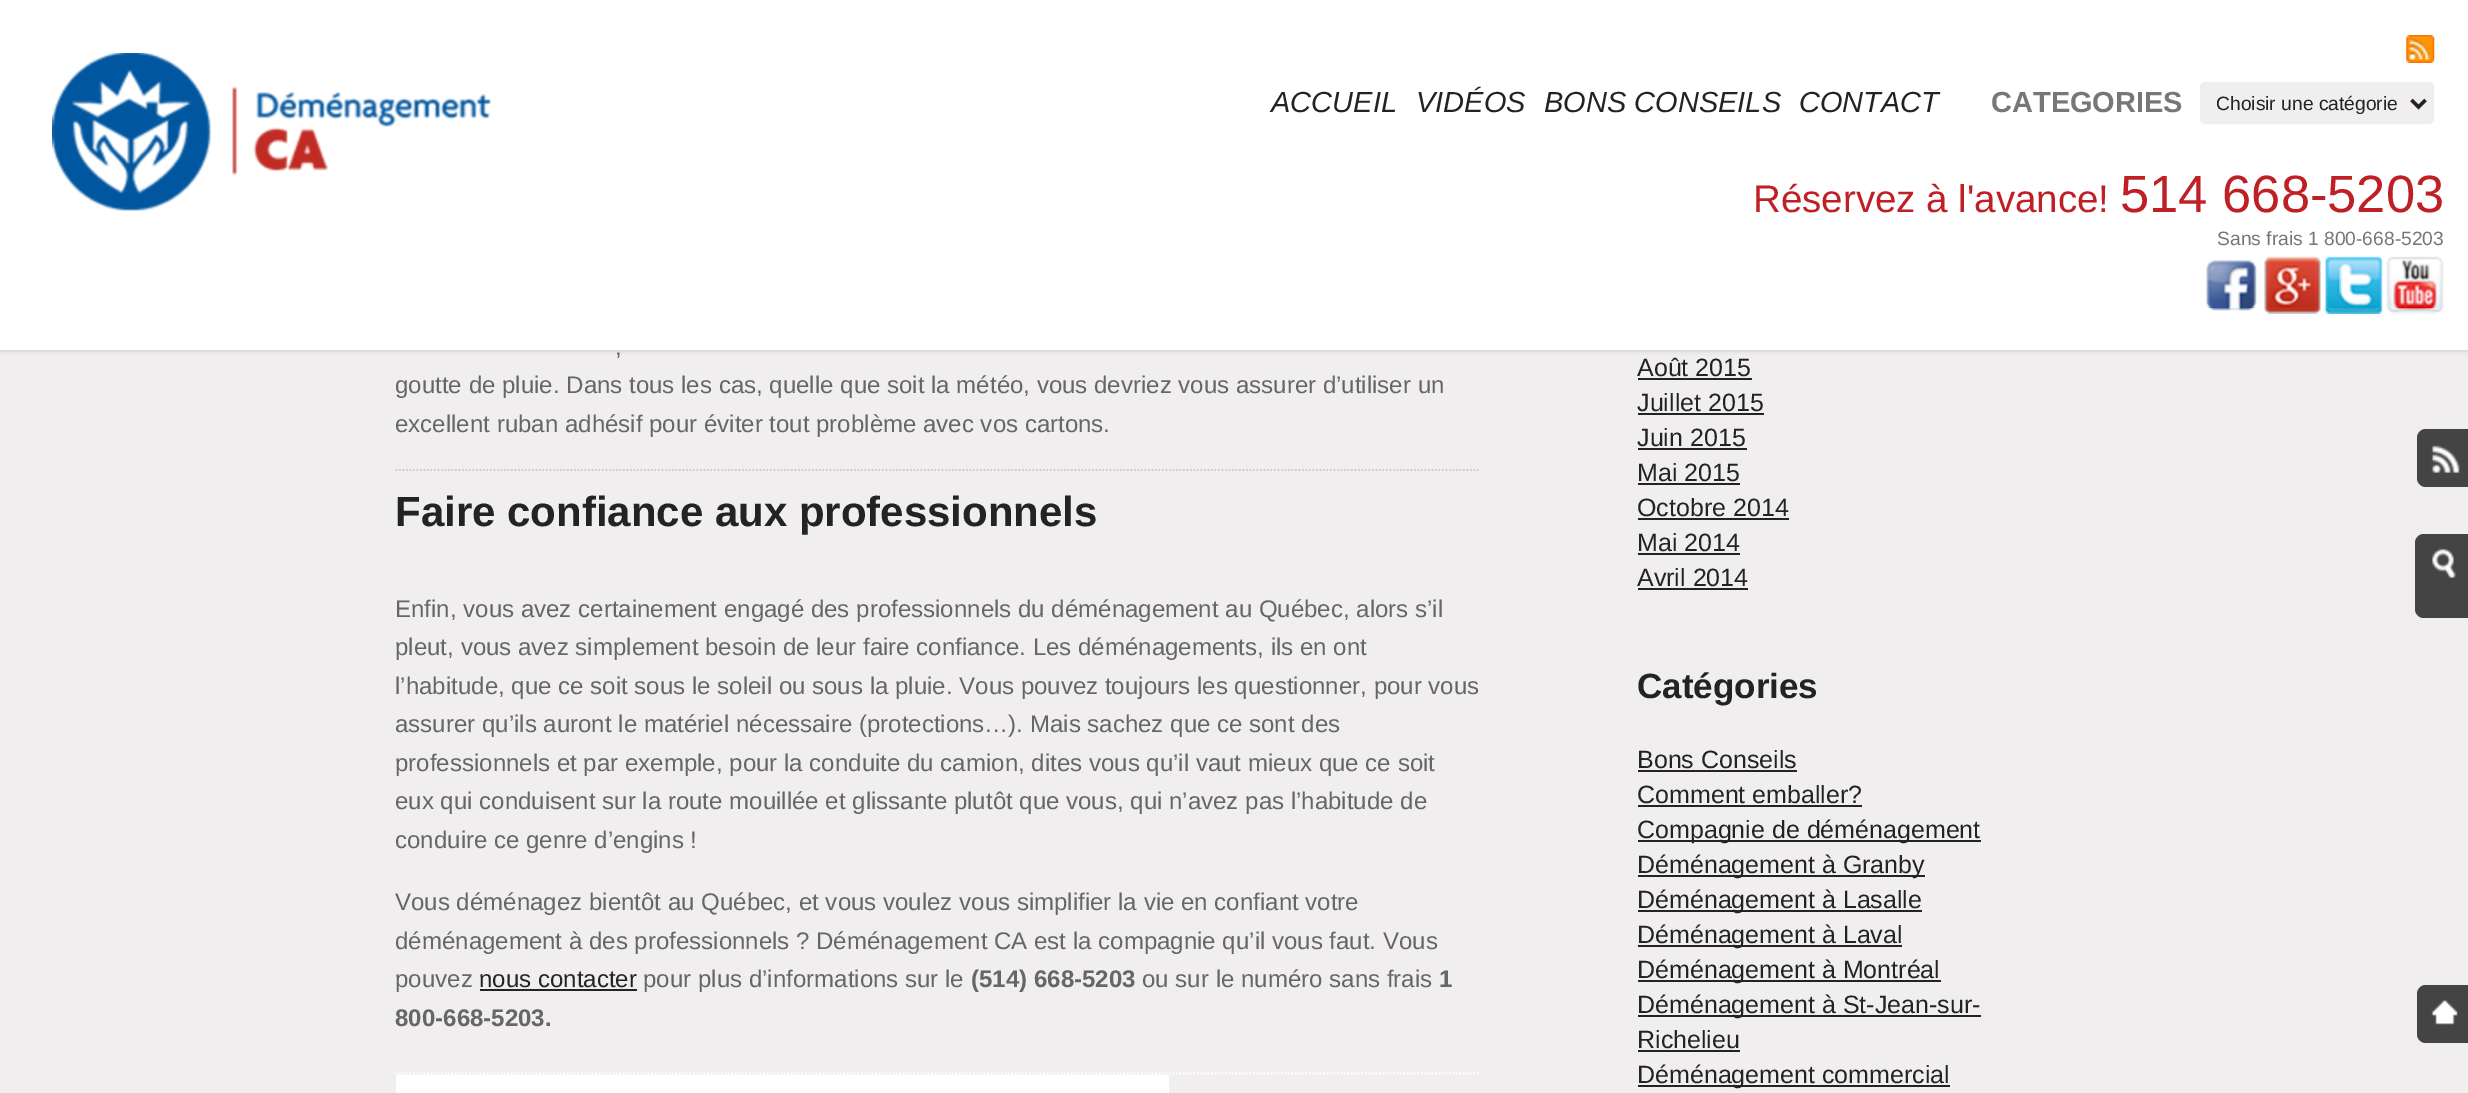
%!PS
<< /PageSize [2468 1093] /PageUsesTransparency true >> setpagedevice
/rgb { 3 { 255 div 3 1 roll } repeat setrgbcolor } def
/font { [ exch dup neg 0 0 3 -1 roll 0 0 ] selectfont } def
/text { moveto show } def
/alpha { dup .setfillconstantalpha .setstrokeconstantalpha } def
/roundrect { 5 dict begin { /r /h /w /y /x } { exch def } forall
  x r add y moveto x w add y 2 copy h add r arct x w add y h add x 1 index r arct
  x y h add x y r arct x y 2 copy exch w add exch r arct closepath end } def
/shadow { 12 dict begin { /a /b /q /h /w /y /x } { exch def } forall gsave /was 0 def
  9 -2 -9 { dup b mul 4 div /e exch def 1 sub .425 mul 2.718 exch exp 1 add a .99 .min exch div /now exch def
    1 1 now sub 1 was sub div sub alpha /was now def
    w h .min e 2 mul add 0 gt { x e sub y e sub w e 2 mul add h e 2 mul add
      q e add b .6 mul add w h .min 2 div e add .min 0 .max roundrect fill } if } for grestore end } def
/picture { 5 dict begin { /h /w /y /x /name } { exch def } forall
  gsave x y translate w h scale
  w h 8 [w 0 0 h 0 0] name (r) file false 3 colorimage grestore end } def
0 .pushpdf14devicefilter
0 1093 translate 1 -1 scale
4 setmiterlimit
240 238 238 rgb
0 0 2468 1093 rectfill
0 0 0 rgb
0 0 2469 350 0 2.5 0.2 shadow
255 255 255 rgb
0 0 2468 350 rectfill
(img_01.rgb) 52 53 439 158 picture
(img_02.rgb) 2406 35 29 28 picture
240 238 238 rgb
2201 83 232 40 4 roundrect gsave fill grestore
238 238 238 rgb
2 setlinewidth
stroke
35 35 35 rgb
3.5 setlinewidth
2411.5 100 moveto 7 7 rlineto 7 -7 rlineto stroke
(img_03.rgb) 2206 260 51 51 picture
(img_04.rgb) 2264 256 57 58 picture
(img_05.rgb) 2325 256 58 58 picture
(img_06.rgb) 2386 256 58 58 picture
204 204 204 rgb
1.8 setlinewidth
[1.75 1.75] 0 setdash
395.5 470 moveto 1085 0 rlineto stroke
35 35 35 rgb
480 989 157 2 rectfill
255 255 255 rgb
395.5 1073.5 moveto 1085 0 rlineto stroke
396 1075 773 18 rectfill
35 35 35 rgb
1638 378 114 2 rectfill
1638 413 126 2 rectfill
1638 448 109 2 rectfill
1638 483 102 2 rectfill
1638 518 151 2 rectfill
1638 553 102 2 rectfill
1638 588 110 2 rectfill
1638 770 159 2 rectfill
1638 805 224 2 rectfill
1638 840 343 2 rectfill
1638 875 287 2 rectfill
1638 910 284 2 rectfill
1638 945 264 2 rectfill
1638 980 303 2 rectfill
1638 1015 343 2 rectfill
1638 1050 102 2 rectfill
1638 1085 312 2 rectfill
68 68 68 rgb
2417 429 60 58 9 roundrect fill
(img_07.rgb) 2431 445 29 28 picture
2415 534 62 84 9 roundrect fill
(img_08.rgb) 2432 548 24 30 picture
2417 985 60 58 9 roundrect fill
(img_09.rgb) 2431 1000 27 25 picture
/LiberationSans-Italic 29 font
35 35 35 rgb
(ACCUEIL) 1271 112 text
(VIDÉOS) 1416 112 text
(BONS CONSEILS) 1544 112 text
(CONTACT) 1799 112 text
/LiberationSans-Bold 29 font
119 119 119 rgb
(CATEGORIES) 1991 112 text
/LiberationSans-Regular 19.25 font
35 35 35 rgb
(Choisir une catégorie) 2216 110 text
/LiberationSans-Regular 38.5 font
191 32 38 rgb
(Réservez à l'avance!) 1753 212 text
/LiberationSans-Regular 52.5 font
(514 668-5203) 2120 212 text
/LiberationSans-Regular 19.25 font
119 119 119 rgb
(Sans frais 1 800-668-5203) 2217 245 text
/LiberationSans-Regular 24.05 font
102 102 102 rgb
(,) 615 355 text
(goutte de pluie. Dans tous les cas, quelle que soit la météo, vous devriez vous assurer d’utiliser un) 395 393 text
(excellent ruban adhésif pour éviter tout problème avec vos cartons.) 395 432 text
/LiberationSans-Bold 42 font
35 35 35 rgb
(Faire confiance aux professionnels) 395 526 text
/LiberationSans-Regular 24.05 font
102 102 102 rgb
(Enfin, vous avez certainement engagé des professionnels du déménagement au Québec, alors s’il) 395 617 text
(pleut, vous avez simplement besoin de leur faire confiance. Les déménagements, ils en ont) 395 655 text
(l’habitude, que ce soit sous le soleil ou sous la pluie. Vous pouvez toujours les questionner, pour vous) 395 694 text
(assurer qu’ils auront le matériel nécessaire \(protections…\). Mais sachez que ce sont des) 395 732 text
(professionnels et par exemple, pour la conduite du camion, dites vous qu’il vaut mieux que ce soit) 395 771 text
(eux qui conduisent sur la route mouillée et glissante plutôt que vous, qui n’avez pas l’habitude de) 395 809 text
(conduire ce genre d’engins !) 395 848 text
(Vous déménagez bientôt au Québec, et vous voulez vous simplifier la vie en confiant votre) 395 910 text
(déménagement à des professionnels ? Déménagement CA est la compagnie qu’il vous faut. Vous) 395 949 text
(pouvez) 395 987 text
35 35 35 rgb
(nous contacter) 479 987 text
102 102 102 rgb
(pour plus d’informations sur le) 643 987 text
/LiberationSans-Bold 24.05 font
(\(514\) 668-5203) 971 987 text
/LiberationSans-Regular 24.05 font
(ou sur le numéro sans frais) 1142 987 text
/LiberationSans-Bold 24.05 font
(1) 1439 987 text
(800-668-5203.) 395 1026 text
/LiberationSans-Regular 25 font
35 35 35 rgb
(Août 2015) 1637 376 text
(Juillet 2015) 1637 411 text
(Juin 2015) 1637 446 text
(Mai 2015) 1637 481 text
(Octobre 2014) 1637 516 text
(Mai 2014) 1637 551 text
(Avril 2014) 1637 586 text
/LiberationSans-Bold 35 font
(Catégories) 1637 698 text
/LiberationSans-Regular 25 font
(Bons Conseils) 1637 768 text
(Comment emballer?) 1637 803 text
(Compagnie de déménagement) 1637 838 text
(Déménagement à Granby) 1637 873 text
(Déménagement à Lasalle) 1637 908 text
(Déménagement à Laval) 1637 943 text
(Déménagement à Montréal) 1637 978 text
(Déménagement à St-Jean-sur-) 1637 1013 text
(Richelieu) 1637 1048 text
(Déménagement commercial) 1637 1083 text
.poppdf14devicefilter showpage
